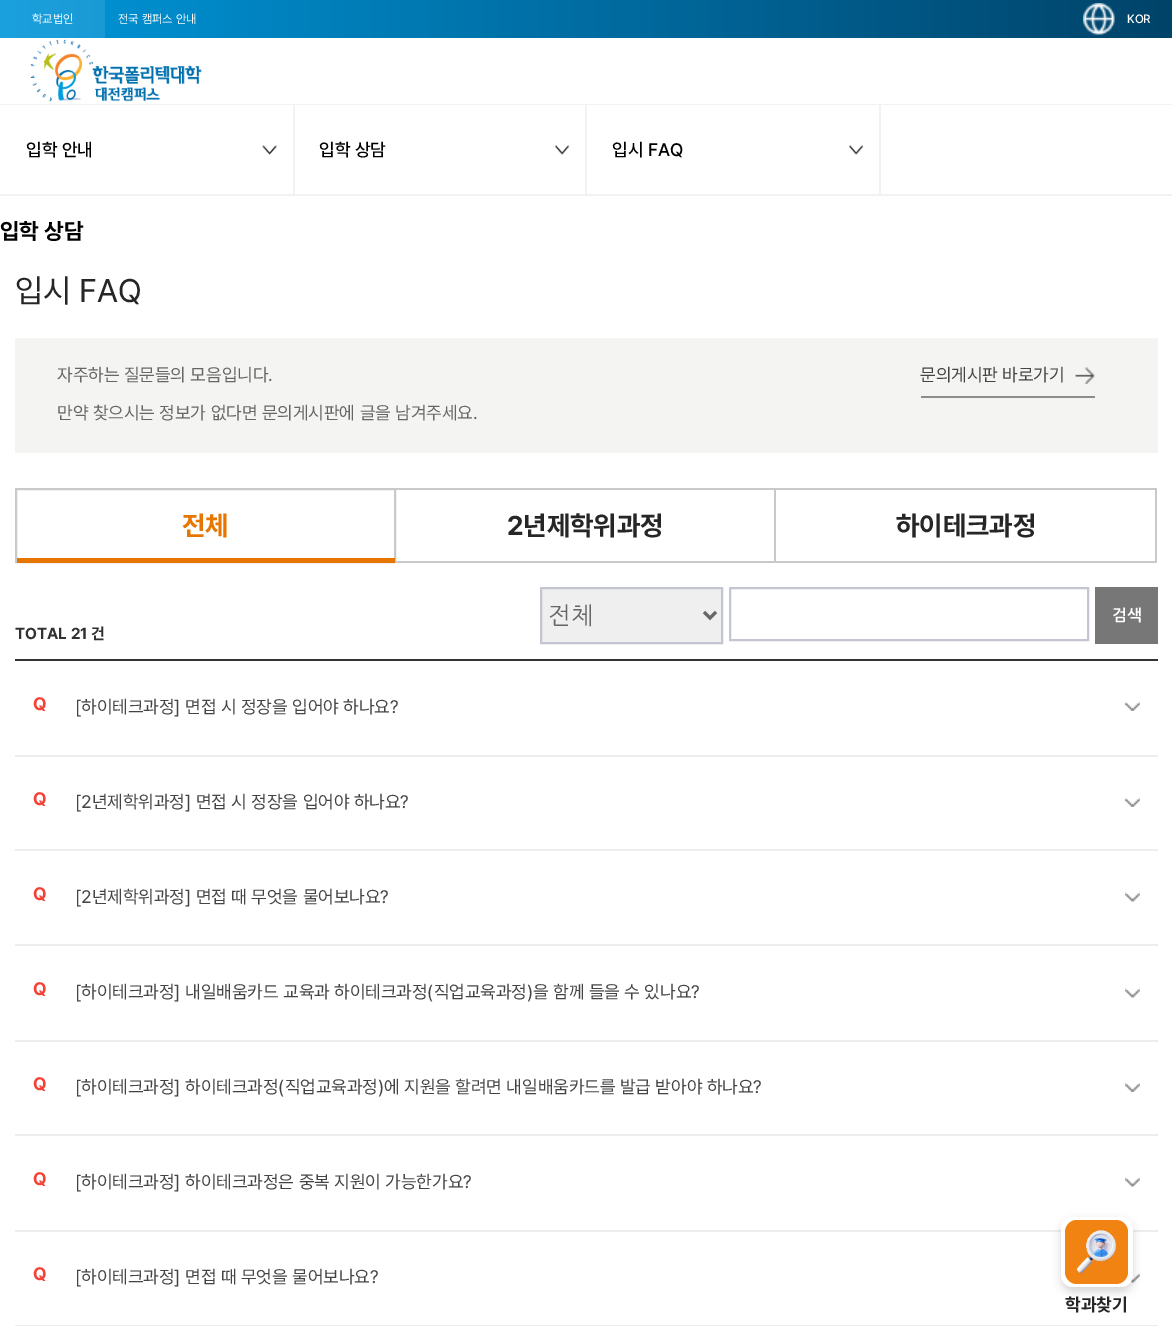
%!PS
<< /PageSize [1172 1326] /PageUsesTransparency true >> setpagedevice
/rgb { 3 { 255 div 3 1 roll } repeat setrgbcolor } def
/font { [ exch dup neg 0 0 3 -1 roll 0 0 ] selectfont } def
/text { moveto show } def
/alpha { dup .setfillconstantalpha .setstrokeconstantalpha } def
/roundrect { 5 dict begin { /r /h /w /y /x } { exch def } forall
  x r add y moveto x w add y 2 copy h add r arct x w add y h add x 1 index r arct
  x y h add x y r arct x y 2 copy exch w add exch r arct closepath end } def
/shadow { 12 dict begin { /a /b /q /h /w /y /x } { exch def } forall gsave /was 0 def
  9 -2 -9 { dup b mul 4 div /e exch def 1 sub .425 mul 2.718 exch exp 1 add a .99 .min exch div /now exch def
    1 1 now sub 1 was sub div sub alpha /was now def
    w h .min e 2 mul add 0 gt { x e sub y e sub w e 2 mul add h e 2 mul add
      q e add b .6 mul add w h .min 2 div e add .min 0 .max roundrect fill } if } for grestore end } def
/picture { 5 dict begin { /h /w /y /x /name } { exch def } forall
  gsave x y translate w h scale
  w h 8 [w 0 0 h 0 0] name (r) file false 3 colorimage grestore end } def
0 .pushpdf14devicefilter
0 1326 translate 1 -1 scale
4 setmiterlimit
255 255 255 rgb
0 0 1172 1326 rectfill
242 242 242 rgb
0 104 1172 1 rectfill
gsave 105 0 moveto 1067 0 rlineto 0 38 rlineto -1067 0 rlineto closepath clip newpath
<< /ShadingType 2 /ColorSpace /DeviceRGB /Coords [0 19 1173 19] /Extend [true true] /Function << /FunctionType 2 /Domain [0 1] /C0 [0 0.588 0.855] /C1 [0 0.263 0.412] /N 1 >> >> shfill grestore
gsave 0 0 moveto 105 0 rlineto 0 38 rlineto -105 0 rlineto closepath clip newpath
<< /ShadingType 2 /ColorSpace /DeviceRGB /Coords [0 19 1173 19] /Extend [true true] /Function << /FunctionType 2 /Domain [0 1] /C0 [0.102 0.631 0.871] /C1 [0.102 0.337 0.471] /N 1 >> >> shfill grestore
(img_01.rgb) 1083 3 32 32 picture
(img_02.rgb) 30 39 172 63 picture
237 237 237 rgb
15 1230 1143 2 rectfill
(img_09.rgb) 1130 1273 10 10 picture
0 0 0 rgb
1061 1221 72 71 12 4.5 0.16 shadow
255 255 255 rgb
1061 1217 72 70 12 roundrect fill
240 131 18 rgb
1065 1220 63 64 12 roundrect fill
(img_03.rgb) 1076 1230 41 44 picture
(img_04.rgb) 262 145 15 10 picture
242 242 242 rgb
293 105 2 90 rectfill
(img_05.rgb) 555 145 15 10 picture
585 105 2 90 rectfill
(img_05.rgb) 849 145 15 10 picture
879 105 2 90 rectfill
0 194 1172 2 rectfill
244 244 242 rgb
15 338 1143 115 rectfill
141 141 141 rgb
921 396 174 2 rectfill
(img_06.rgb) 1075 367 20 17 picture
201 201 201 rgb
2 setlinewidth
16 489 379 73 rectstroke
230 118 0 rgb
17 558 378 5 rectfill
201 201 201 rgb
396 488 761 2 rectfill
774 488 2 75 rectfill
396 561 380 2 rectfill
1155 488 2 75 rectfill
776 561 381 2 rectfill
239 239 239 rgb
541 588 moveto 181 0 rlineto 0 55 rlineto -181 0 rlineto closepath gsave fill grestore
195 198 208 rgb
stroke
102 102 102 rgb
3 setlinewidth
704 612 moveto 6 6 rlineto 6 -6 rlineto stroke
195 198 208 rgb
2 setlinewidth
730 588 358 52 rectstroke
119 119 119 rgb
1095 587 63 57 rectfill
(img_07.rgb) 1125 702 15 9 picture
51 51 51 rgb
15 659 1143 2 rectfill
237 237 237 rgb
15 755 1143 2 rectfill
(img_07.rgb) 1125 798 15 9 picture
15 849 1143 2 rectfill
(img_08.rgb) 1125 892 15 10 picture
15 944 1143 2 rectfill
(img_08.rgb) 1125 988 15 10 picture
15 1040 1143 2 rectfill
(img_07.rgb) 1125 1083 15 9 picture
15 1134 1143 2 rectfill
(img_08.rgb) 1125 1177 15 10 picture
15 1325 1143 1 rectfill
/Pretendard-Regular 12 font
255 255 255 rgb
(학교법인) 32 23 text
(전국 캠퍼스 안내) 118 23 text
/Pretendard-Medium 12 font
(KOR) 1127 23 text
/Pretendard-Bold 18 font
38 38 38 rgb
(학과찾기) 1065 1311 text
/Pretendard-Medium 18 font
0 0 0 rgb
(입학 안내) 26 156 text
(입학 상담) 319 156 text
(입시 FAQ) 612 156 text
/Pretendard-Bold 22.5 font
(입학 상담) 0 239 text
/Pretendard-Regular 32.5 font
38 38 38 rgb
(입시 FAQ) 15 302 text
/Pretendard-Regular 18 font
102 102 102 rgb
(자주하는 질문들의 모음입니다.) 57 381 text
68 68 68 rgb
(문의게시판 바로가기) 920 381 text
102 102 102 rgb
(만약 찾으시는 정보가 없다면 문의게시판에 글을 남겨주세요.) 57 419 text
/Pretendard-Bold 27 font
230 118 0 rgb
(전체) 182 535 text
38 38 38 rgb
(2년제학위과정) 507 535 text
(하이테크과정) 896 535 text
/NanumGothic-Regular 24 font
102 102 102 rgb
(전체) 548 623 text
/NanumGothic-Bold 15.75 font
255 255 255 rgb
(검색) 1112 620 text
/Pretendard-Bold 15.75 font
49 49 49 rgb
(TOTAL 21 건) 15 639 text
/Pretendard-Bold 18 font
244 67 54 rgb
(Q) 33 710 text
/Pretendard-Regular 18 font
68 68 68 rgb
([하이테크과정] 면접 시 정장을 입어야 하나요?) 75 713 text
/Pretendard-Bold 18 font
244 67 54 rgb
(Q) 33 805 text
/Pretendard-Regular 18 font
68 68 68 rgb
([2년제학위과정] 면접 시 정장을 입어야 하나요?) 75 808 text
/Pretendard-Bold 18 font
244 67 54 rgb
(Q) 33 900 text
/Pretendard-Regular 18 font
68 68 68 rgb
([2년제학위과정] 면접 때 무엇을 물어보나요?) 75 903 text
/Pretendard-Bold 18 font
244 67 54 rgb
(Q) 33 995 text
/Pretendard-Regular 18 font
68 68 68 rgb
([하이테크과정] 내일배움카드 교육과 하이테크과정\(직업교육과정\)을 함께 들을 수 있나요?) 75 998 text
/Pretendard-Bold 18 font
244 67 54 rgb
(Q) 33 1090 text
/Pretendard-Regular 18 font
68 68 68 rgb
([하이테크과정] 하이테크과정\(직업교육과정\)에 지원을 할려면 내일배움카드를 발급 받아야 하나요?) 75 1093 text
/Pretendard-Bold 18 font
244 67 54 rgb
(Q) 33 1185 text
/Pretendard-Regular 18 font
68 68 68 rgb
([하이테크과정] 하이테크과정은 중복 지원이 가능한가요?) 75 1188 text
/Pretendard-Bold 18 font
244 67 54 rgb
(Q) 33 1280 text
/Pretendard-Regular 18 font
68 68 68 rgb
([하이테크과정] 면접 때 무엇을 물어보나요?) 75 1283 text
.poppdf14devicefilter showpage
